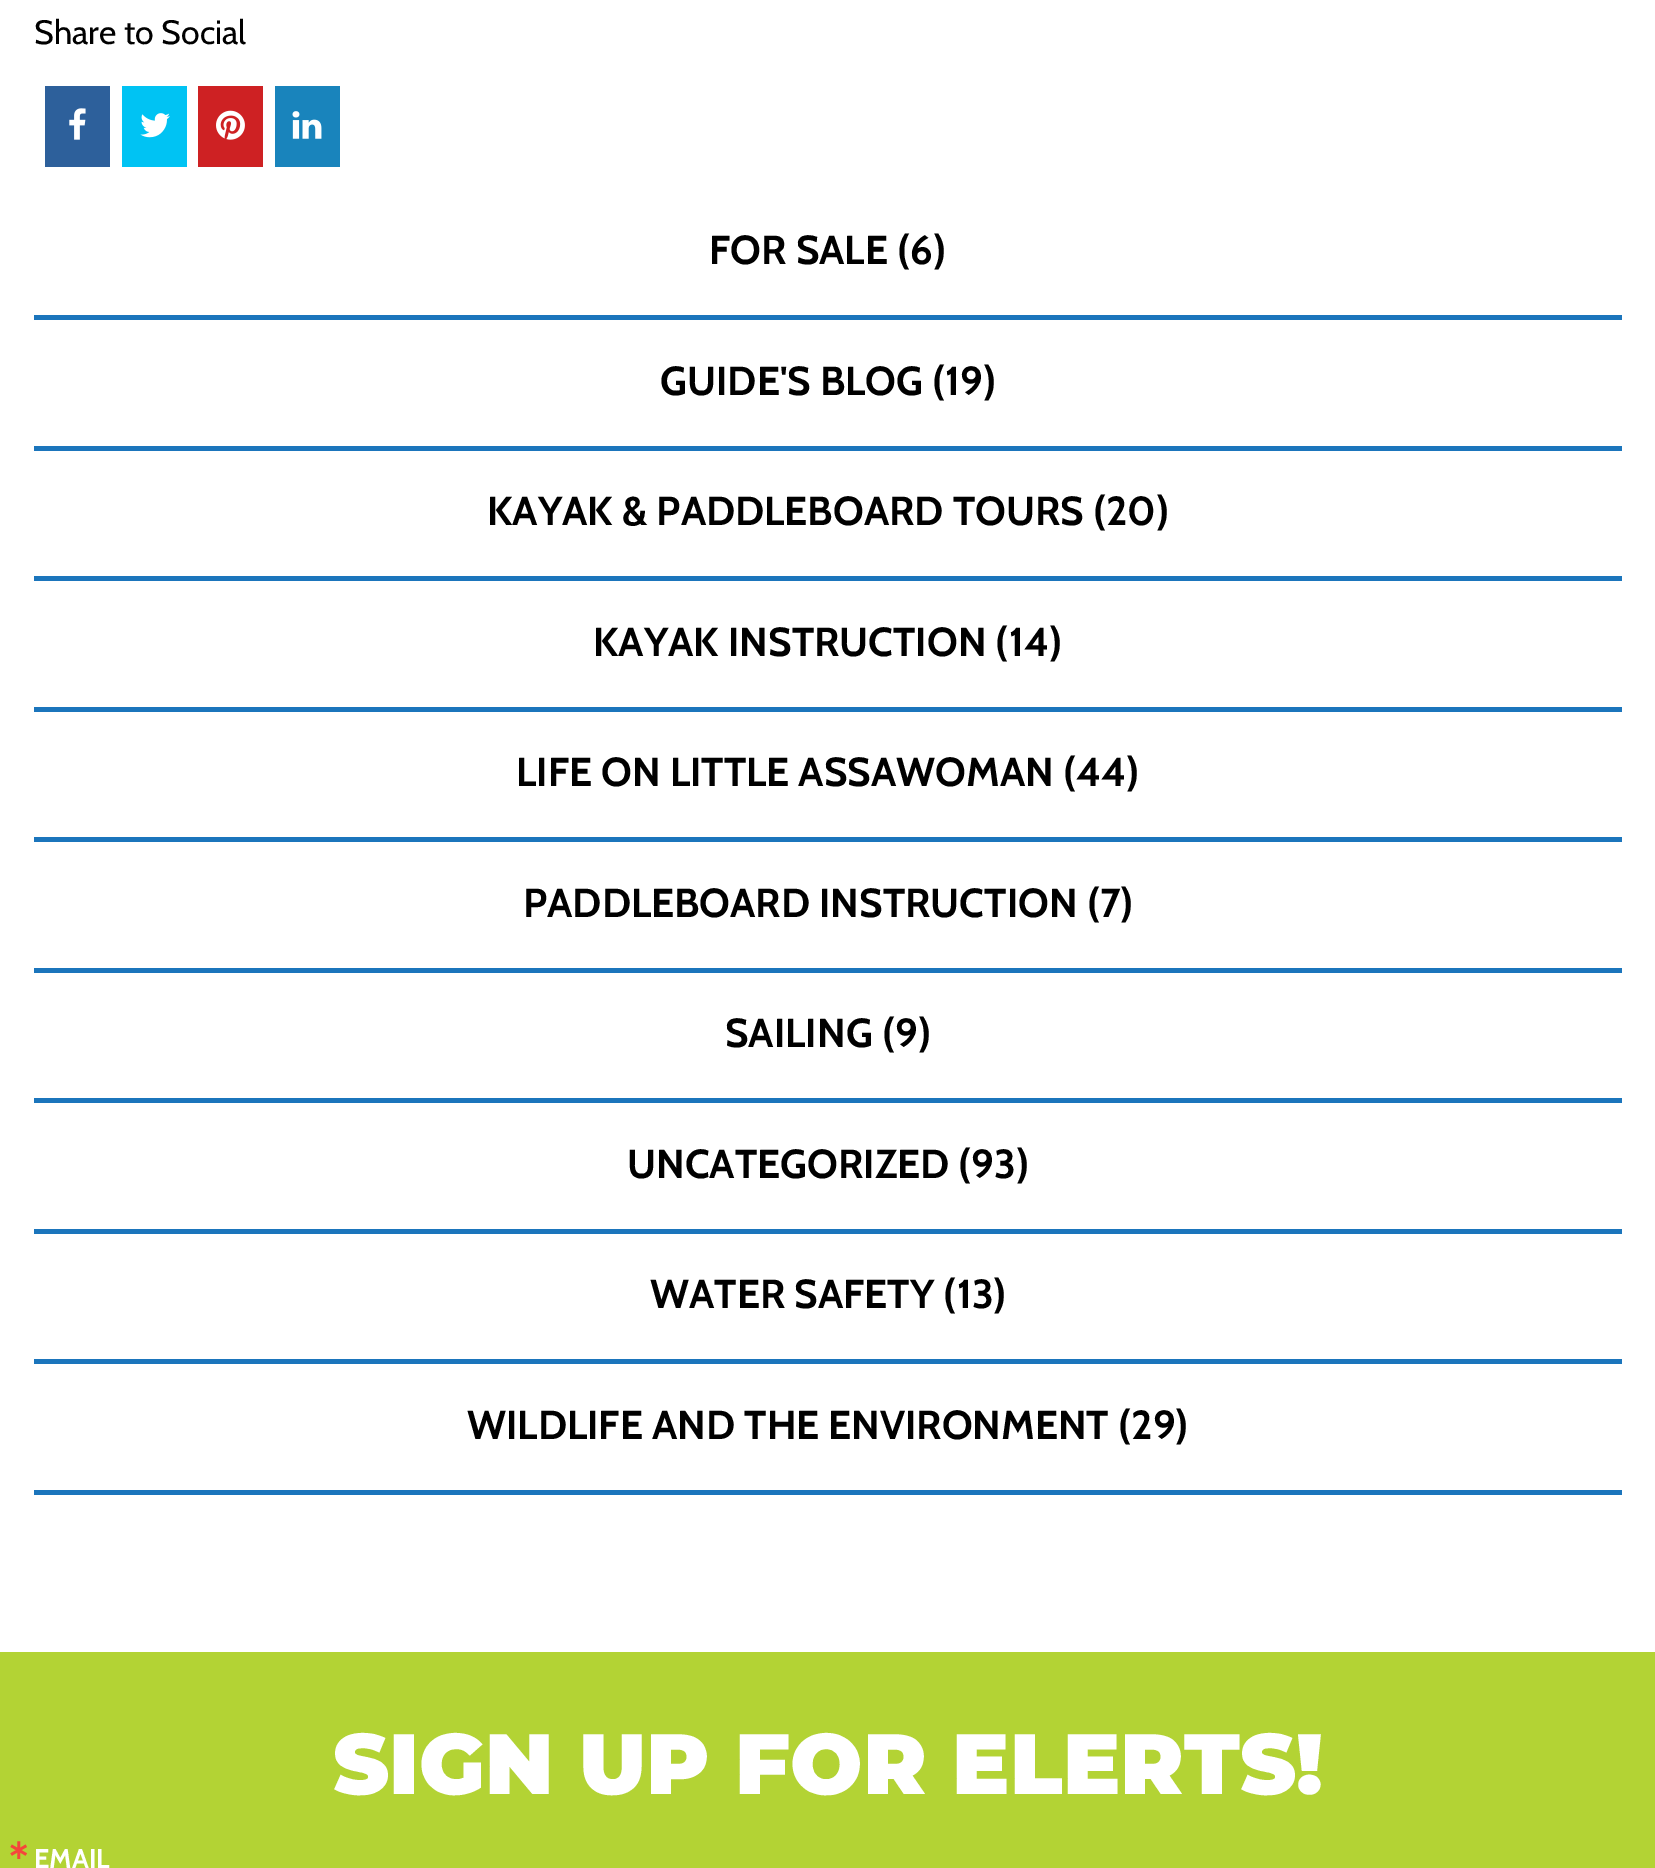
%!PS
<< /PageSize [1655 1868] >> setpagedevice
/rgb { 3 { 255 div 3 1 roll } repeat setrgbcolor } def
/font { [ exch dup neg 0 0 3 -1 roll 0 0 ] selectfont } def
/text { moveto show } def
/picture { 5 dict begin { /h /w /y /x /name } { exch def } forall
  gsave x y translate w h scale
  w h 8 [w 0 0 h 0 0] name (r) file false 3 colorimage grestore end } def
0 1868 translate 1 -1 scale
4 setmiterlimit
255 255 255 rgb
0 0 1655 1868 rectfill
45 96 155 rgb
45 86 65 81 rectfill
(img_01.rgb) 69 108 17 32 picture
0 195 243 rgb
122 86 65 81 rectfill
(img_02.rgb) 140 113 30 25 picture
206 33 35 rgb
198 86 65 81 rectfill
(img_03.rgb) 216 110 29 30 picture
25 132 188 rgb
275 86 65 81 rectfill
(img_04.rgb) 292 111 30 28 picture
27 117 188 rgb
34 315 1588 5 rectfill
34 446 1588 5 rectfill
34 576 1588 5 rectfill
34 707 1588 5 rectfill
34 837 1588 5 rectfill
34 968 1588 5 rectfill
34 1098 1588 5 rectfill
34 1229 1588 5 rectfill
34 1359 1588 5 rectfill
34 1490 1588 5 rectfill
179 211 52 rgb
0 1652 1655 216 rectfill
/Cabin-Regular 33.75 font
0 0 0 rgb
(Share to Social) 34 44 text
/Cabin-Bold 40.5 font
(FOR SALE \(6\)) 709 264 text
(GUIDE'S BLOG \(19\)) 660 395 text
(KAYAK & PADDLEBOARD TOURS \(20\)) 487 525 text
(KAYAK INSTRUCTION \(14\)) 593 656 text
(LIFE ON LITTLE ASSAWOMAN \(44\)) 516 786 text
(PADDLEBOARD INSTRUCTION \(7\)) 523 917 text
(SAILING \(9\)) 725 1047 text
(UNCATEGORIZED \(93\)) 627 1178 text
(WATER SAFETY \(13\)) 650 1308 text
(WILDLIFE AND THE ENVIRONMENT \(29\)) 467 1439 text
/Montserrat-Black 85.5 font
255 255 255 rgb
(SIGN UP FOR ELERTS!) 333 1794 text
/DejaVuSans-Bold 27 font
245 70 59 rgb
(∗) 7 1859 text
/Cabin-Bold 27 font
255 255 255 rgb
(EMAIL) 34 1868 text
showpage
